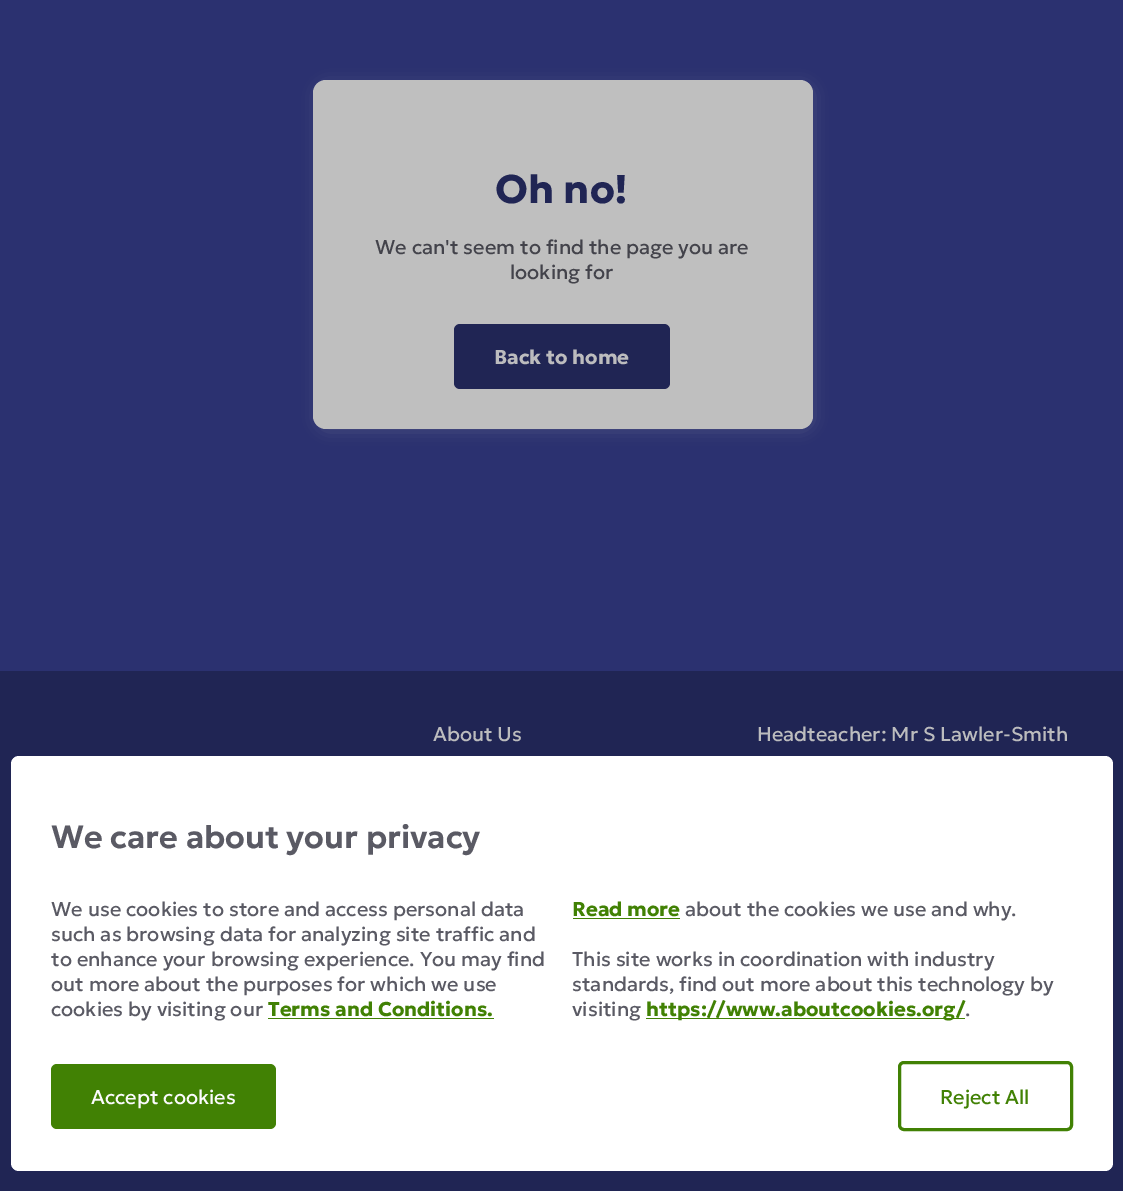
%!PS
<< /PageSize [1123 1191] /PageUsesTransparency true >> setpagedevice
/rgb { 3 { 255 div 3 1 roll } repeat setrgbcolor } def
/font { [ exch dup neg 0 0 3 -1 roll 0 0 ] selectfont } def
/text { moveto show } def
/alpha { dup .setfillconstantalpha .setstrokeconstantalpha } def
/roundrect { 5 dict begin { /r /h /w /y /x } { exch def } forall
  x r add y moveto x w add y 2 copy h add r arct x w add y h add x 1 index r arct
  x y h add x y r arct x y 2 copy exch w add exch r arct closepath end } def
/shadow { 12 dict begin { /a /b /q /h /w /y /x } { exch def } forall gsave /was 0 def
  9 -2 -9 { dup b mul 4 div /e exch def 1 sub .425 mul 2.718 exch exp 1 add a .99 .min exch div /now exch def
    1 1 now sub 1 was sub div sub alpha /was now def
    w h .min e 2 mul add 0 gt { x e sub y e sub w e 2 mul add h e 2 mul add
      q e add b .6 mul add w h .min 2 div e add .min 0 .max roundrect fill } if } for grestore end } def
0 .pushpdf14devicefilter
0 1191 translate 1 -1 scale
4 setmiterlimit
57 65 149 rgb
0 0 1123 1191 rectfill
189 195 219 rgb
319 86 492 342 9 8 0.4 shadow
255 255 255 rgb
313 80 500 349 13 roundrect fill
43 49 112 rgb
454 324 216 65 6 roundrect fill
0 671 1123 520 rectfill
/Geologica-Bold 40 font
(Oh no!) 495 203 text
/Geologica-Regular 20 font
90 90 100 rgb
(We can't seem to find the page you are) 375 254 text
(looking for) 510 279 text
/Geologica-Bold 20 font
251 251 253 rgb
(Back to home) 494 364 text
/Geologica-Regular 20 font
(About Us) 433 741 text
(Headteacher: Mr S Lawler-Smith) 757 741 text
0.25 alpha
0 0 0 rgb
2500 setlinewidth
-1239 -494 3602 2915 1258 roundrect stroke
1 alpha
255 255 255 rgb
11 756 1102 415 8 roundrect fill
/Geologica-SemiBold 32 font
90 90 100 rgb
(We care about your privacy) 51 848 text
/Geologica-Regular 20 font
(We use cookies to store and access personal data) 51 916 text
(such as browsing data for analyzing site traffic and) 51 941 text
(to enhance your browsing experience. You may find) 51 966 text
(out more about the purposes for which we use) 51 991 text
(cookies by visiting our) 51 1016 text
/Geologica-Bold 20 font
65 129 4 rgb
(Terms and Conditions.) 268 1016 text
268 1018 226 1 rectfill
(Read more) 572 916 text
573 918 107 1 rectfill
/Geologica-Regular 20 font
90 90 100 rgb
(about the cookies we use and why.) 685 916 text
(This site works in coordination with industry) 572 966 text
(standards, find out more about this technology by) 572 991 text
(visiting) 572 1016 text
65 129 4 rgb
646 1018 319 1 rectfill
/Geologica-Bold 20 font
(https://www.aboutcookies.org/) 646 1016 text
/Geologica-Regular 20 font
90 90 100 rgb
(.) 965 1016 text
65 129 4 rgb
51 1064 225 65 6 roundrect fill
251 251 253 rgb
(Accept cookies) 91 1104 text
65 129 4 rgb
3 setlinewidth
899.5 1062.5 172 67 4.5 roundrect stroke
(Reject All) 940 1104 text
.poppdf14devicefilter showpage
